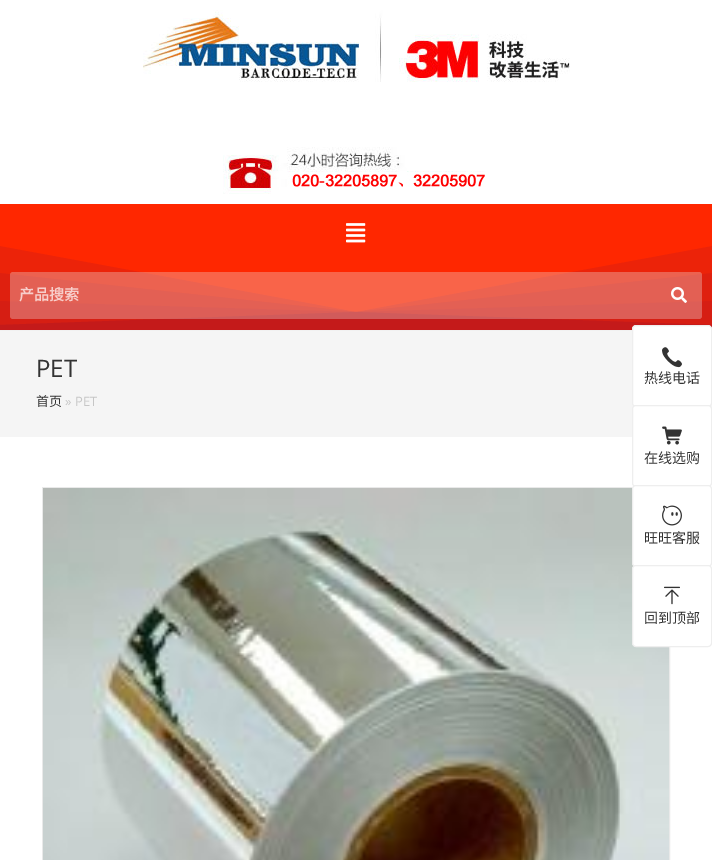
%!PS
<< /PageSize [712 860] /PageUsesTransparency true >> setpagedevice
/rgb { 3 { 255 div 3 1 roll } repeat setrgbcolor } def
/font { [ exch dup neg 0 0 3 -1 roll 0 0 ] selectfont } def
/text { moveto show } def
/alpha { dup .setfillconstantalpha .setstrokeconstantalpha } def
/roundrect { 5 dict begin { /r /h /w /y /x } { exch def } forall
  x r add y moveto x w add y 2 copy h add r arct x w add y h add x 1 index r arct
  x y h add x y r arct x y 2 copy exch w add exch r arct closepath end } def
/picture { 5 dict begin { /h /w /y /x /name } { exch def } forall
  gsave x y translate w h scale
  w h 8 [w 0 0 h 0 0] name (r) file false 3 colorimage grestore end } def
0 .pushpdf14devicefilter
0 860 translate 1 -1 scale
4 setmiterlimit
255 255 255 rgb
0 0 712 860 rectfill
241 241 241 rgb
0 330 632 1 rectfill
(img_01.rgb) 143 10 427 72 picture
(img_02.rgb) 223 147 263 47 picture
255 39 0 rgb
0 204 712 121 rectfill
0.33 alpha
196 26 26 rgb
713 330 moveto 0 -84 rlineto -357 66 rlineto -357 -66 rlineto 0 84 rlineto closepath fill
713 330 moveto 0 -57 rlineto -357 39 rlineto -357 -39 rlineto 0 57 rlineto closepath fill
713 330 moveto 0 -29 rlineto -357 11 rlineto -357 -11 rlineto 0 29 rlineto closepath fill
1 alpha
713 330 moveto 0 -5 rlineto -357 -13 rlineto -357 13 rlineto 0 5 rlineto closepath fill
(img_03.rgb) 346 223 20 20 picture
0.31 alpha
237 237 237 rgb
13 272 moveto 644 0 rlineto 0 47 rlineto -644 0 rlineto -1.5 0 -3 -1.5 -3 -3 rcurveto 0 -41 rlineto 0 -1.5 1.5 -3 3 -3 rcurveto closepath fill
657 272 moveto 42 0 rlineto 1.5 0 3 1.5 3 3 rcurveto 0 41 rlineto 0 1.5 -1.5 3 -3 3 rcurveto -42 0 rlineto closepath fill
1 alpha
(img_04.rgb) 671 287 16 16 picture
245 245 245 rgb
0 331 712 106 rectfill
255 255 255 rgb
632.5 325.5 79 81 3.5 roundrect gsave fill grestore
238 238 238 rgb
stroke
(img_05.rgb) 662 347 20 21 picture
255 255 255 rgb
632.5 405.5 79 81 3.5 roundrect gsave fill grestore
238 238 238 rgb
stroke
(img_06.rgb) 662 426 20 19 picture
233 233 233 rgb
42.5 487.5 627 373 rectstroke
(img_09.rgb) 43 488 626 372 picture
255 255 255 rgb
632.5 485.5 79 81 3.5 roundrect gsave fill grestore
238 238 238 rgb
stroke
(img_07.rgb) 662 505 20 21 picture
255 255 255 rgb
632.5 565.5 79 81 3.5 roundrect gsave fill grestore
238 238 238 rgb
stroke
(img_08.rgb) 664 586 16 19 picture
/NotoSansCJKSC-Bold 15 font
247 206 203 rgb
(产品搜索) 19 300 text
/OpenSans-Regular 24 font
51 51 51 rgb
(PET) 36 377 text
/NotoSansCJKSC-Regular 13 font
(首页) 36 406 text
/OpenSans-Regular 13 font
198 198 198 rgb
(» PET) 65 406 text
/NotoSansCJKSC-Regular 14 font
51 51 51 rgb
(热线电话) 644 383 text
(在线选购) 644 463 text
(旺旺客服) 644 543 text
(回到顶部) 644 623 text
.poppdf14devicefilter showpage
